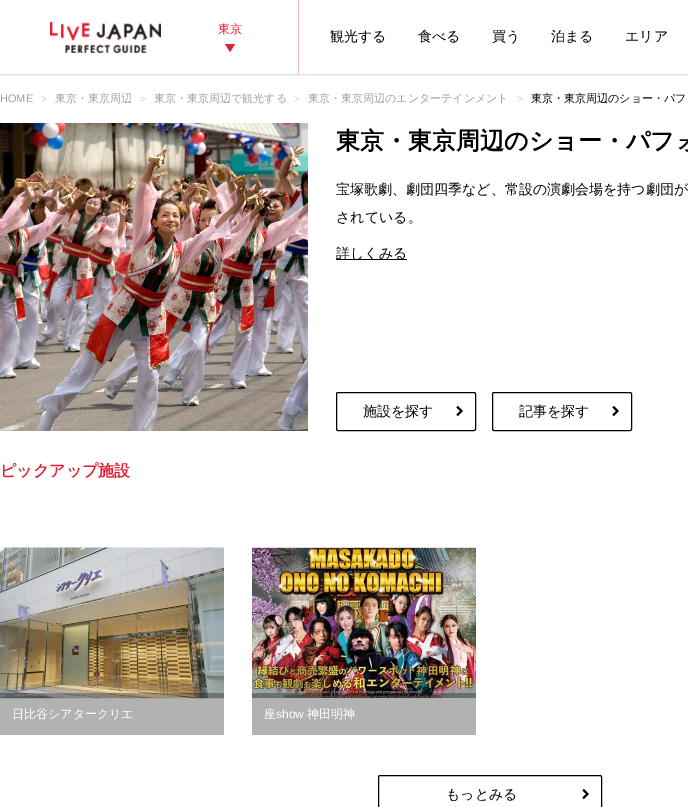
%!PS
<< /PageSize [688 807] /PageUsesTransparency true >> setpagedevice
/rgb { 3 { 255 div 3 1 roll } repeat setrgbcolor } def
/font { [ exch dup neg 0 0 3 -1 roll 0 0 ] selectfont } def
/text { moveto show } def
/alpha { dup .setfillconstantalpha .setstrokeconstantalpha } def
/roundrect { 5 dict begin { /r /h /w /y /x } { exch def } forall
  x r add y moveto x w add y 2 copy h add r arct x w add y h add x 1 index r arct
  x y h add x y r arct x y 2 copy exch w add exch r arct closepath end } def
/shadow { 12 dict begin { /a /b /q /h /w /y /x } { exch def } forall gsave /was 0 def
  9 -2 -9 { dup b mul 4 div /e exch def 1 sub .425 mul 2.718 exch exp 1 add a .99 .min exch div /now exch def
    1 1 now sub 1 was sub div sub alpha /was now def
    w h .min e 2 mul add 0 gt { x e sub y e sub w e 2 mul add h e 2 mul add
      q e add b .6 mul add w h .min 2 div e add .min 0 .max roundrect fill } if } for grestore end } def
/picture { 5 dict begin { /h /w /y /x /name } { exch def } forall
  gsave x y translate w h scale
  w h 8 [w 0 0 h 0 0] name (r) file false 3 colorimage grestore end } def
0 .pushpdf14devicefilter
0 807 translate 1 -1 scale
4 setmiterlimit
255 255 255 rgb
0 0 688 807 rectfill
gsave
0 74 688 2 rectclip
50 50 50 rgb
-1 -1 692 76 0 1 0.2 shadow
grestore
(img_01.rgb) 50 21 111 32 picture
228 31 53 rgb
225 44 moveto 10 0 rlineto -5 8 rlineto closepath fill
247 187 194 rgb
298 0 1 74 rectfill
(img_02.rgb) 0 123 308 308 picture
0 0 0 rgb
336 259 71 1 rectfill
336.5 392.5 139 38 1.5 roundrect stroke
(img_03.rgb) 456 406 7 11 picture
492.5 392.5 139 38 1.5 roundrect stroke
(img_03.rgb) 612 406 7 11 picture
(img_04.rgb) 0 547 224 154 picture
0.3 alpha
0 693 224 42 rectfill
1 alpha
(img_05.rgb) 252 546 224 155 picture
0.3 alpha
252 693 224 42 rectfill
1 alpha
378.5 775.5 223 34 1.5 roundrect stroke
(img_03.rgb) 582 789 7 11 picture
/WenQuanYiZenHei-Medium 12 font
228 31 53 rgb
(東京) 218 33 text
/WenQuanYiZenHei-Medium 14 font
0 0 0 rgb
(観光する) 330 41 text
(食べる) 418 41 text
(買う) 492 41 text
(泊まる) 551 41 text
(エリア) 625 41 text
/LiberationSans-Regular 11 font
160 160 160 rgb
(HOME) 0 102 text
/LiberationSans-Regular 10 font
204 204 204 rgb
(>) 41 102 text
/WenQuanYiZenHei-Medium 11 font
160 160 160 rgb
(東京・東京周辺) 55 102 text
/LiberationSans-Regular 10 font
204 204 204 rgb
(>) 140 102 text
/WenQuanYiZenHei-Medium 11 font
160 160 160 rgb
(東京・東京周辺で観光する) 154 102 text
/LiberationSans-Regular 10 font
204 204 204 rgb
(>) 294 102 text
/WenQuanYiZenHei-Medium 11 font
160 160 160 rgb
(東京・東京周辺のエンターテインメント) 308 102 text
/LiberationSans-Regular 10 font
204 204 204 rgb
(>) 517 102 text
/WenQuanYiZenHei-Medium 11 font
0 0 0 rgb
(東京・東京周辺のショー・パフ) 531 102 text
/WenQuanYiZenHei-Bold 24 font
(東京・東京周辺のショー・パフォ) 336 149 text
/WenQuanYiZenHei-Medium 14 font
(宝塚歌劇、劇団四季など、常設の演劇会場を持つ劇団が) 336 194 text
(されている。) 336 222 text
(詳しくみる) 336 258 text
(施設を探す) 363 416 text
(記事を探す) 519 416 text
/WenQuanYiZenHei-Bold 16 font
228 31 53 rgb
(ピックアップ施設) 0 476 text
/WenQuanYiZenHei-Medium 12 font
255 255 255 rgb
(日比谷シアタークリエ) 12 718 text
(座) 264 718 text
/LiberationSans-Regular 12 font
(show) 276 718 text
/WenQuanYiZenHei-Medium 12 font
(神田明神) 307 718 text
/WenQuanYiZenHei-Medium 14 font
0 0 0 rgb
(もっとみる) 446 799 text
.poppdf14devicefilter showpage
